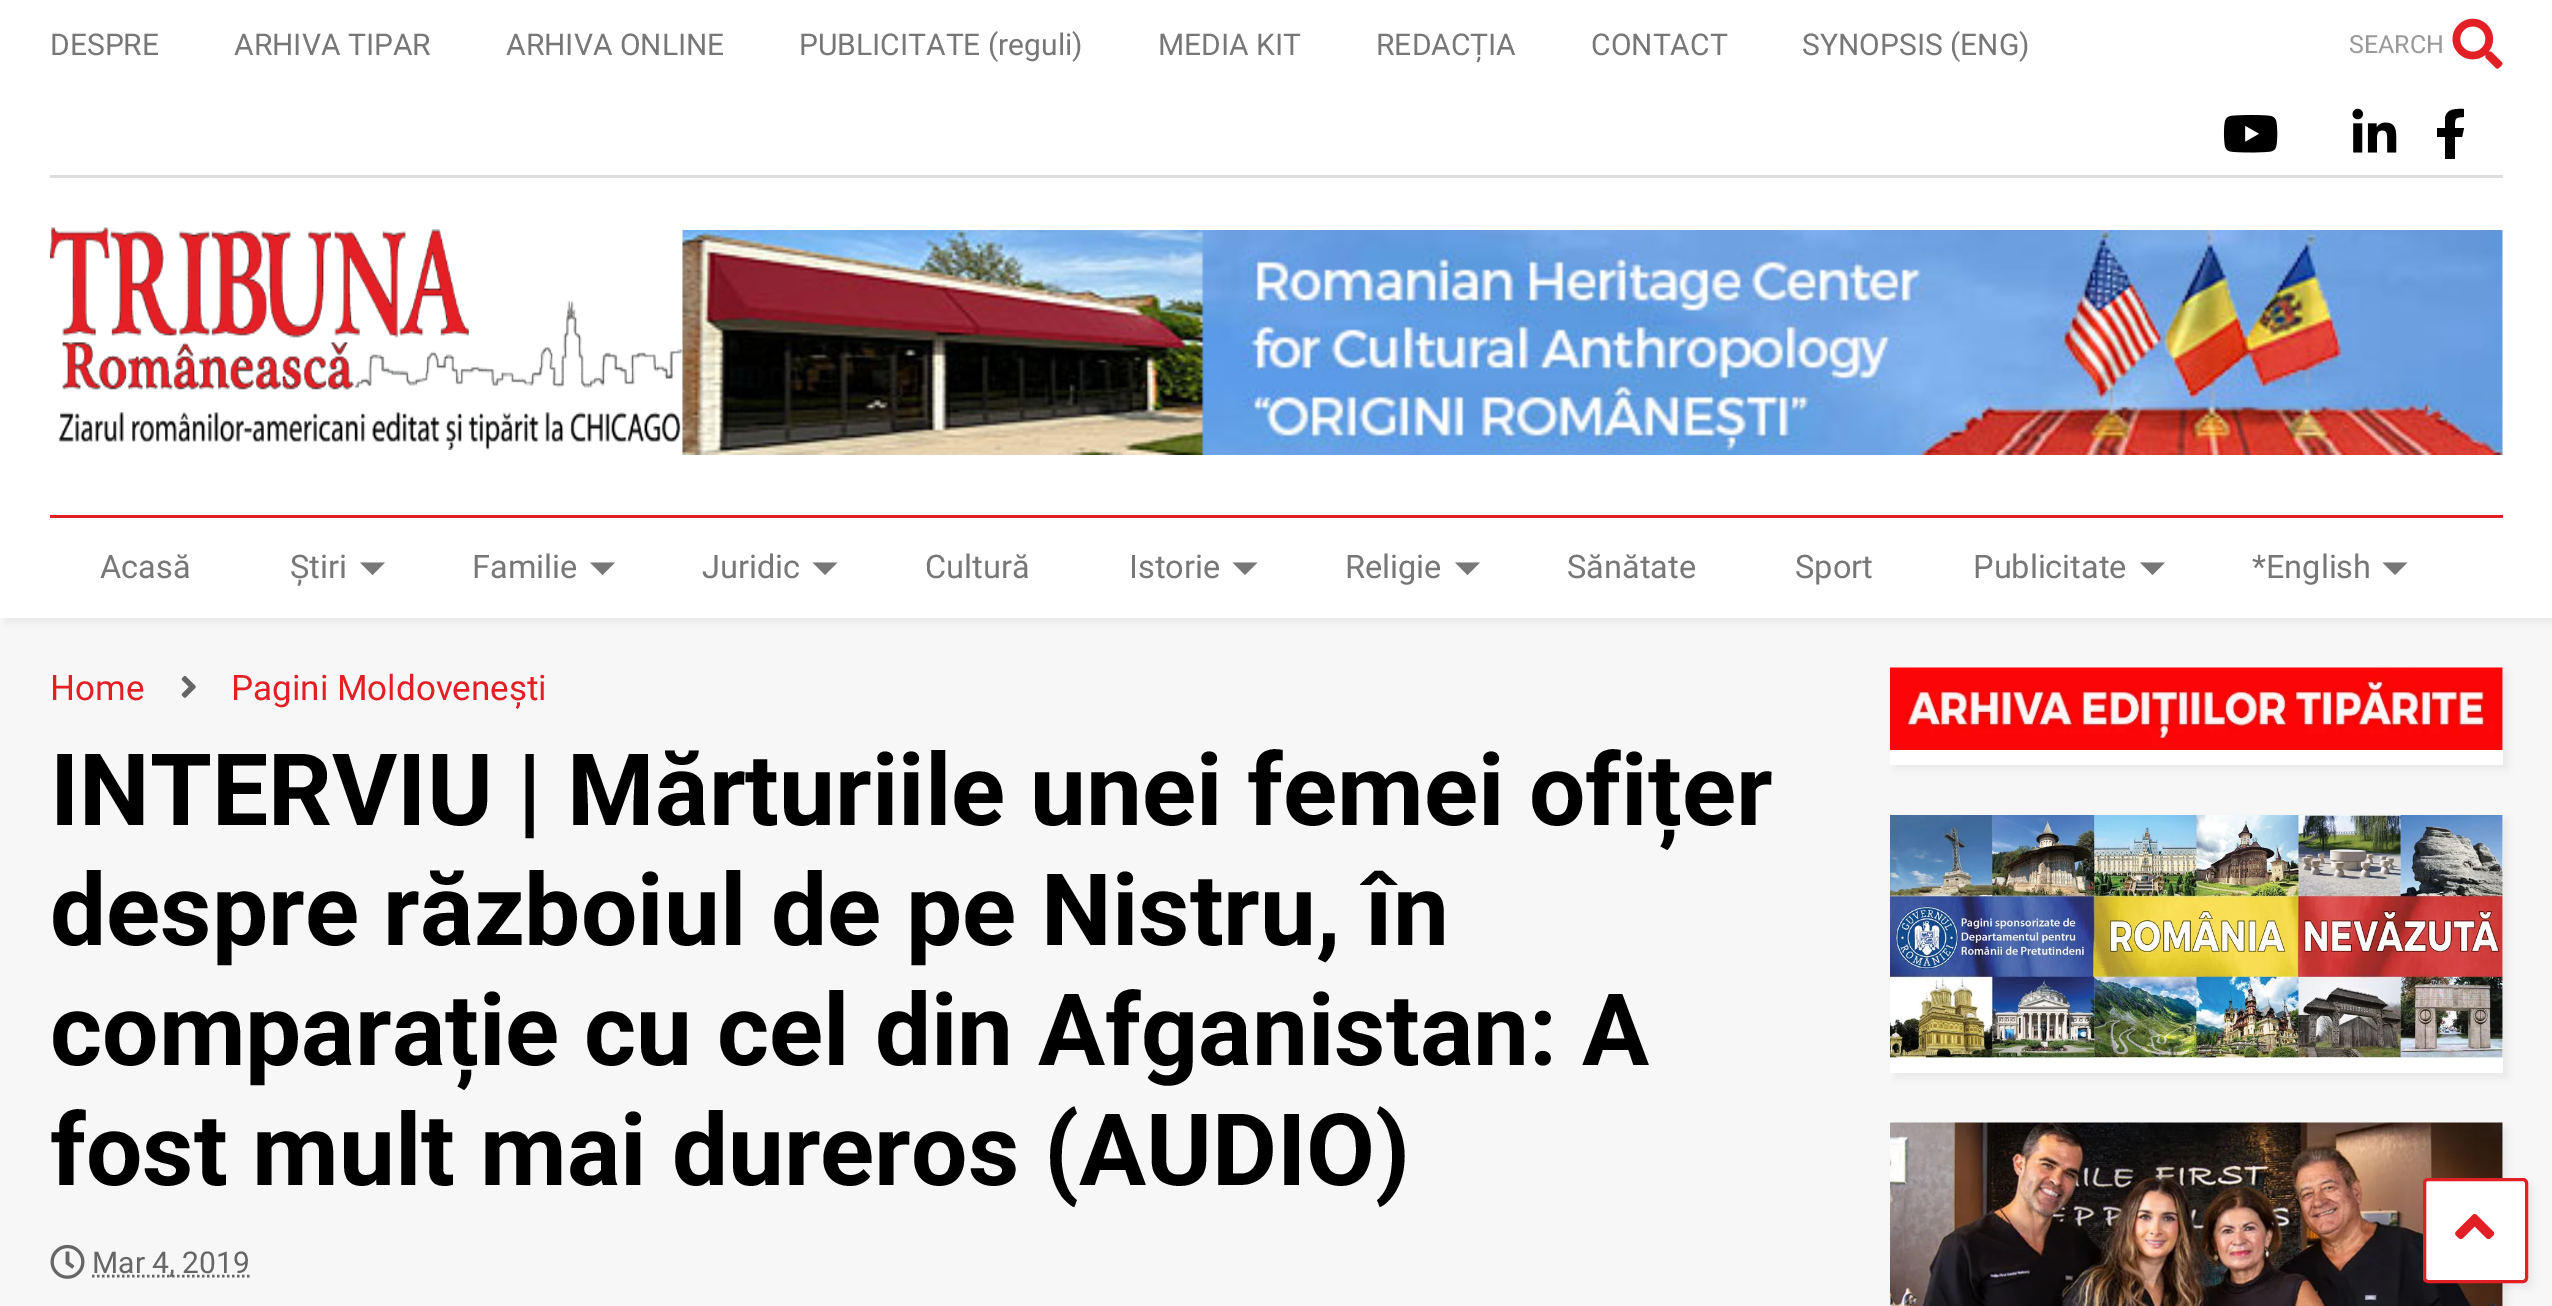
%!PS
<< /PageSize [2552 1306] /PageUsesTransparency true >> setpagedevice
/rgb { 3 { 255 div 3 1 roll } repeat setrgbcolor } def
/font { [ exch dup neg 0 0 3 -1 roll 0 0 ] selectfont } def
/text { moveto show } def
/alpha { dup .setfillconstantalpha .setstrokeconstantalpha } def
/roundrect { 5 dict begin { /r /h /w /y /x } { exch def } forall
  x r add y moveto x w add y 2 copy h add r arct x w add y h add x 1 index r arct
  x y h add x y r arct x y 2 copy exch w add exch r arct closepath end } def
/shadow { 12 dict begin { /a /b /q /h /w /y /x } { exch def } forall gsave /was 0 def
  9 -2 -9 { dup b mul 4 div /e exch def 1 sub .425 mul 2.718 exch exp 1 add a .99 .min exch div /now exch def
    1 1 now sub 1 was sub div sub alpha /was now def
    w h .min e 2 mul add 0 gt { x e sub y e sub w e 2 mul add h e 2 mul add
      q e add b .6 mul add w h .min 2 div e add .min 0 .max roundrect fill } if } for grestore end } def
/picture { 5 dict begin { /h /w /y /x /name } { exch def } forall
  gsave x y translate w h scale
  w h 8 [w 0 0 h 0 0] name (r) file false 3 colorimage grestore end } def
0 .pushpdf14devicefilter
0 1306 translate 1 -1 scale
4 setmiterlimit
247 247 247 rgb
0 0 2552 1306 rectfill
0 0 0 rgb
5 5 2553 618 0 4 0.05 shadow
255 255 255 rgb
0 0 2552 618 rectfill
221 221 221 rgb
50 175 2453 3 rectfill
(img_01.rgb) 2452 18 51 51 picture
(img_02.rgb) 2223 115 55 38 picture
(img_03.rgb) 2352 108 45 45 picture
0 0 0 rgb
2462 137 moveto -7 0 rlineto 0 22 rlineto -10 0 rlineto 0 -22 rlineto -8 0 rlineto 0 -9 rlineto 8 0 rlineto 0 -10 rlineto 2 -10 11 -9 19 -9 rcurveto 0 8 rlineto -10 0 -9 2 -9 11 rcurveto 9 0 rlineto closepath fill
(img_05.rgb) 682 230 1821 225 picture
(img_04.rgb) 50 227 633 223 picture
227 31 38 rgb
50 515 2453 3 rectfill
119 119 119 rgb
360 562.5 moveto 25 0 rlineto -12.5 12.5 rlineto closepath fill
590 562.5 moveto 25 0 rlineto -12.5 12.5 rlineto closepath fill
812.5 562.5 moveto 25 0 rlineto -12.5 12.5 rlineto closepath fill
1232.5 562.5 moveto 25 0 rlineto -12.5 12.5 rlineto closepath fill
1455 562.5 moveto 25 0 rlineto -12.5 12.5 rlineto closepath fill
2140 562.5 moveto 25 0 rlineto -12.5 12.5 rlineto closepath fill
2382.5 562.5 moveto 25 0 rlineto -12.5 12.5 rlineto closepath fill
(img_06.rgb) 181 676 15 22 picture
(img_07.rgb) 50 1244 35 35 picture
102 102 102 rgb
2.5 setlinewidth
[2.5 2.5] 0 setdash
92 1276 moveto 158 0 rlineto stroke
0 0 0 rgb
1895 673 613 97 0 4 0.05 shadow
255 255 255 rgb
1890 668 613 97 rectfill
(img_08.rgb) 1890 667 613 83 picture
0 0 0 rgb
1895 820 613 258 0 4 0.05 shadow
255 255 255 rgb
1890 815 613 258 rectfill
(img_09.rgb) 1890 815 613 243 picture
0 0 0 rgb
1895 1128 613 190 0 4 0.05 shadow
255 255 255 rgb
2502 1123 1 183 rectfill
(img_10.rgb) 1890 1122 613 184 picture
0 0 0 rgb
2428 1183 105 105 5 4 0.05 shadow
255 255 255 rgb
2424.5 1179.5 102 102 3.5 roundrect gsave fill grestore
227 31 38 rgb
3 setlinewidth
[] 0 setdash
stroke
(img_11.rgb) 2455 1214 40 26 picture
/Roboto-Regular 30 font
119 119 119 rgb
(DESPRE) 50 55 text
(ARHIVA TIPAR) 234 55 text
(ARHIVA ONLINE) 506 55 text
(PUBLICITATE \(reguli\)) 799 55 text
(MEDIA KIT) 1158 55 text
(REDACȚIA) 1376 55 text
(CONTACT) 1591 55 text
(SYNOPSIS \(ENG\)) 1802 55 text
/Roboto-Regular 25 font
153 153 153 rgb
(SEARCH) 2349 53 text
/Roboto-Regular 32.5 font
119 119 119 rgb
(Acasă) 100 578 text
(Știri) 290 578 text
(Familie) 472 578 text
(Juridic) 702 578 text
(Cultură) 925 578 text
(Istorie) 1129 578 text
(Religie) 1345 578 text
(Sănătate) 1567 578 text
(Sport) 1795 578 text
(Publicitate) 1973 578 text
(*English) 2252 578 text
/Roboto-Regular 35 font
227 31 38 rgb
(Home) 50 700 text
(Pagini Moldovenești) 231 700 text
/Roboto-Bold 100 font
0 0 0 rgb
(INTERVIU | Mărturiile unei femei ofițer) 50 825 text
(despre războiul de pe Nistru, în) 50 945 text
(comparație cu cel din Afganistan: A) 50 1065 text
(fost mult mai dureros \(AUDIO\)) 50 1185 text
/Roboto-Regular 30 font
102 102 102 rgb
(Mar 4, 2019) 92 1273 text
.poppdf14devicefilter showpage
